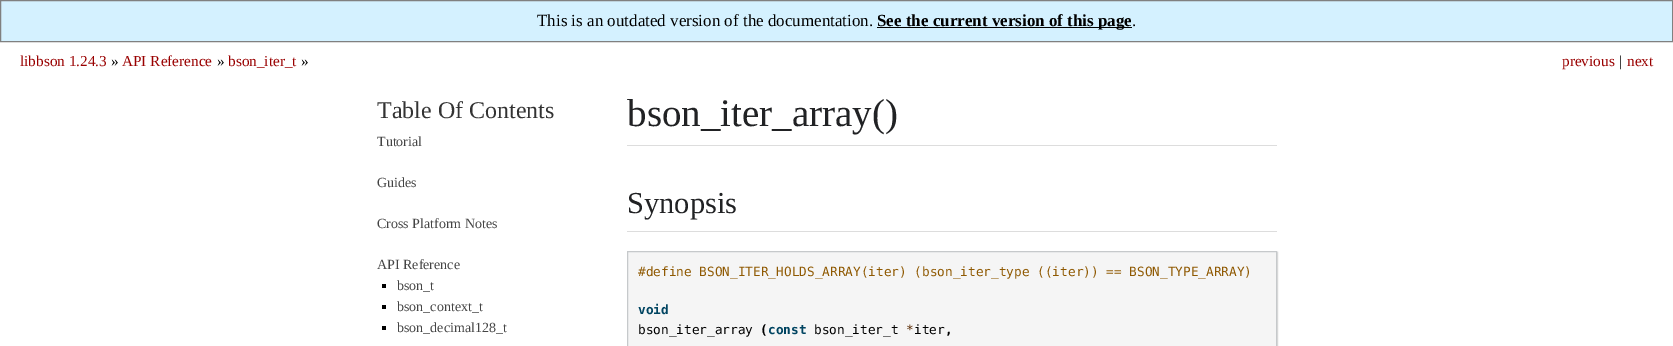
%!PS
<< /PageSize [1673 346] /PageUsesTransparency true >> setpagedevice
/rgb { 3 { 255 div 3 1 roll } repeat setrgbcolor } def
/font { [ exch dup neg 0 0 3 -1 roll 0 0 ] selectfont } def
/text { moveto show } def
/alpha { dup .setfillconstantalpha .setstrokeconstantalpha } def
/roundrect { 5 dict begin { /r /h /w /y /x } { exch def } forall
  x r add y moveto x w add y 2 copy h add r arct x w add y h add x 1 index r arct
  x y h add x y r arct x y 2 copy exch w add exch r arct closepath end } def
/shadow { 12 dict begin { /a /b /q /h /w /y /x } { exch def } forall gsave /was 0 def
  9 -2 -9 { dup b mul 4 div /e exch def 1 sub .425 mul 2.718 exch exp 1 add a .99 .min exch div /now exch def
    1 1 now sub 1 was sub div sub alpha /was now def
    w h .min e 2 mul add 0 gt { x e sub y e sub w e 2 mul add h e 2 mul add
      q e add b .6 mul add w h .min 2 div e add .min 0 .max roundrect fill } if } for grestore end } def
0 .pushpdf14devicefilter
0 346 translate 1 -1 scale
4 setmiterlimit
255 255 255 rgb
0 0 1673 346 rectfill
212 241 255 rgb
0.5 0.5 moveto 1672 0 rlineto 0 41 rlineto -1672 0 rlineto closepath gsave fill grestore
128 128 128 rgb
stroke
0 0 0 rgb
877 27 255 1 rectfill
382 284 4 4 rectfill
382 305 4 4 rectfill
382 326 4 4 rectfill
221 221 221 rgb
627 145 650 1 rectfill
627 231 650 1 rectfill
216 216 216 rgb
628 252 650 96 0 0.5 1 shadow
245 245 245 rgb
627.5 251.5 moveto 649 0 rlineto 0 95 rlineto -649 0 rlineto closepath gsave fill grestore
198 201 203 rgb
stroke
/LiberationSerif-Regular 17 font
0 0 0 rgb
(This is an outdated version of the documentation.) 537 26 text
/LiberationSerif-Bold 17 font
(See the current version of this page) 877 26 text
/LiberationSerif-Regular 17 font
(.) 1132 26 text
/LiberationSerif-Regular 15.25 font
153 0 0 rgb
(libbson 1.24.3) 20 66 text
0 0 0 rgb
(») 111 66 text
153 0 0 rgb
(API Reference) 122 66 text
0 0 0 rgb
(») 217 66 text
153 0 0 rgb
(bson_iter_t) 228 66 text
0 0 0 rgb
(») 301 66 text
153 0 0 rgb
(previous) 1562 66 text
0 0 0 rgb
(|) 1619 66 text
153 0 0 rgb
(next) 1627 66 text
/LiberationSerif-Regular 24 font
51 51 51 rgb
(Table Of Contents) 377 118 text
/LiberationSerif-Regular 14 font
68 68 68 rgb
(Tutorial) 377 146 text
(Guides) 377 187 text
(Cross Platform Notes) 377 228 text
(API Reference) 377 269 text
(bson_t) 397 290 text
(bson_context_t) 397 311 text
(bson_decimal128_t) 397 332 text
/LiberationSerif-Regular 39 font
33 34 36 rgb
(bson_iter_array\(\)) 627 126 text
/LiberationSerif-Regular 30.5 font
(Synopsis) 627 213 text
/DejaVuSansMono-Regular 12.75 font
143 89 2 rgb
(#define BSON_ITER_HOLDS_ARRAY\(iter\) \(bson_iter_type \(\(iter\)\) == BSON_TYPE_ARRAY\)) 638 276 text
/DejaVuSansMono-Bold 12.75 font
0 68 97 rgb
(void) 638 314 text
/DejaVuSansMono-Regular 12.75 font
0 0 0 rgb
(bson_iter_array) 638 334 text
/DejaVuSansMono-Bold 12.75 font
(\() 760 334 text
0 68 97 rgb
(const) 768 334 text
/DejaVuSansMono-Regular 12.75 font
0 0 0 rgb
(bson_iter_t) 814 334 text
88 40 0 rgb
(*) 906 334 text
0 0 0 rgb
(iter) 914 334 text
/DejaVuSansMono-Bold 12.75 font
(,) 945 334 text
.poppdf14devicefilter showpage
